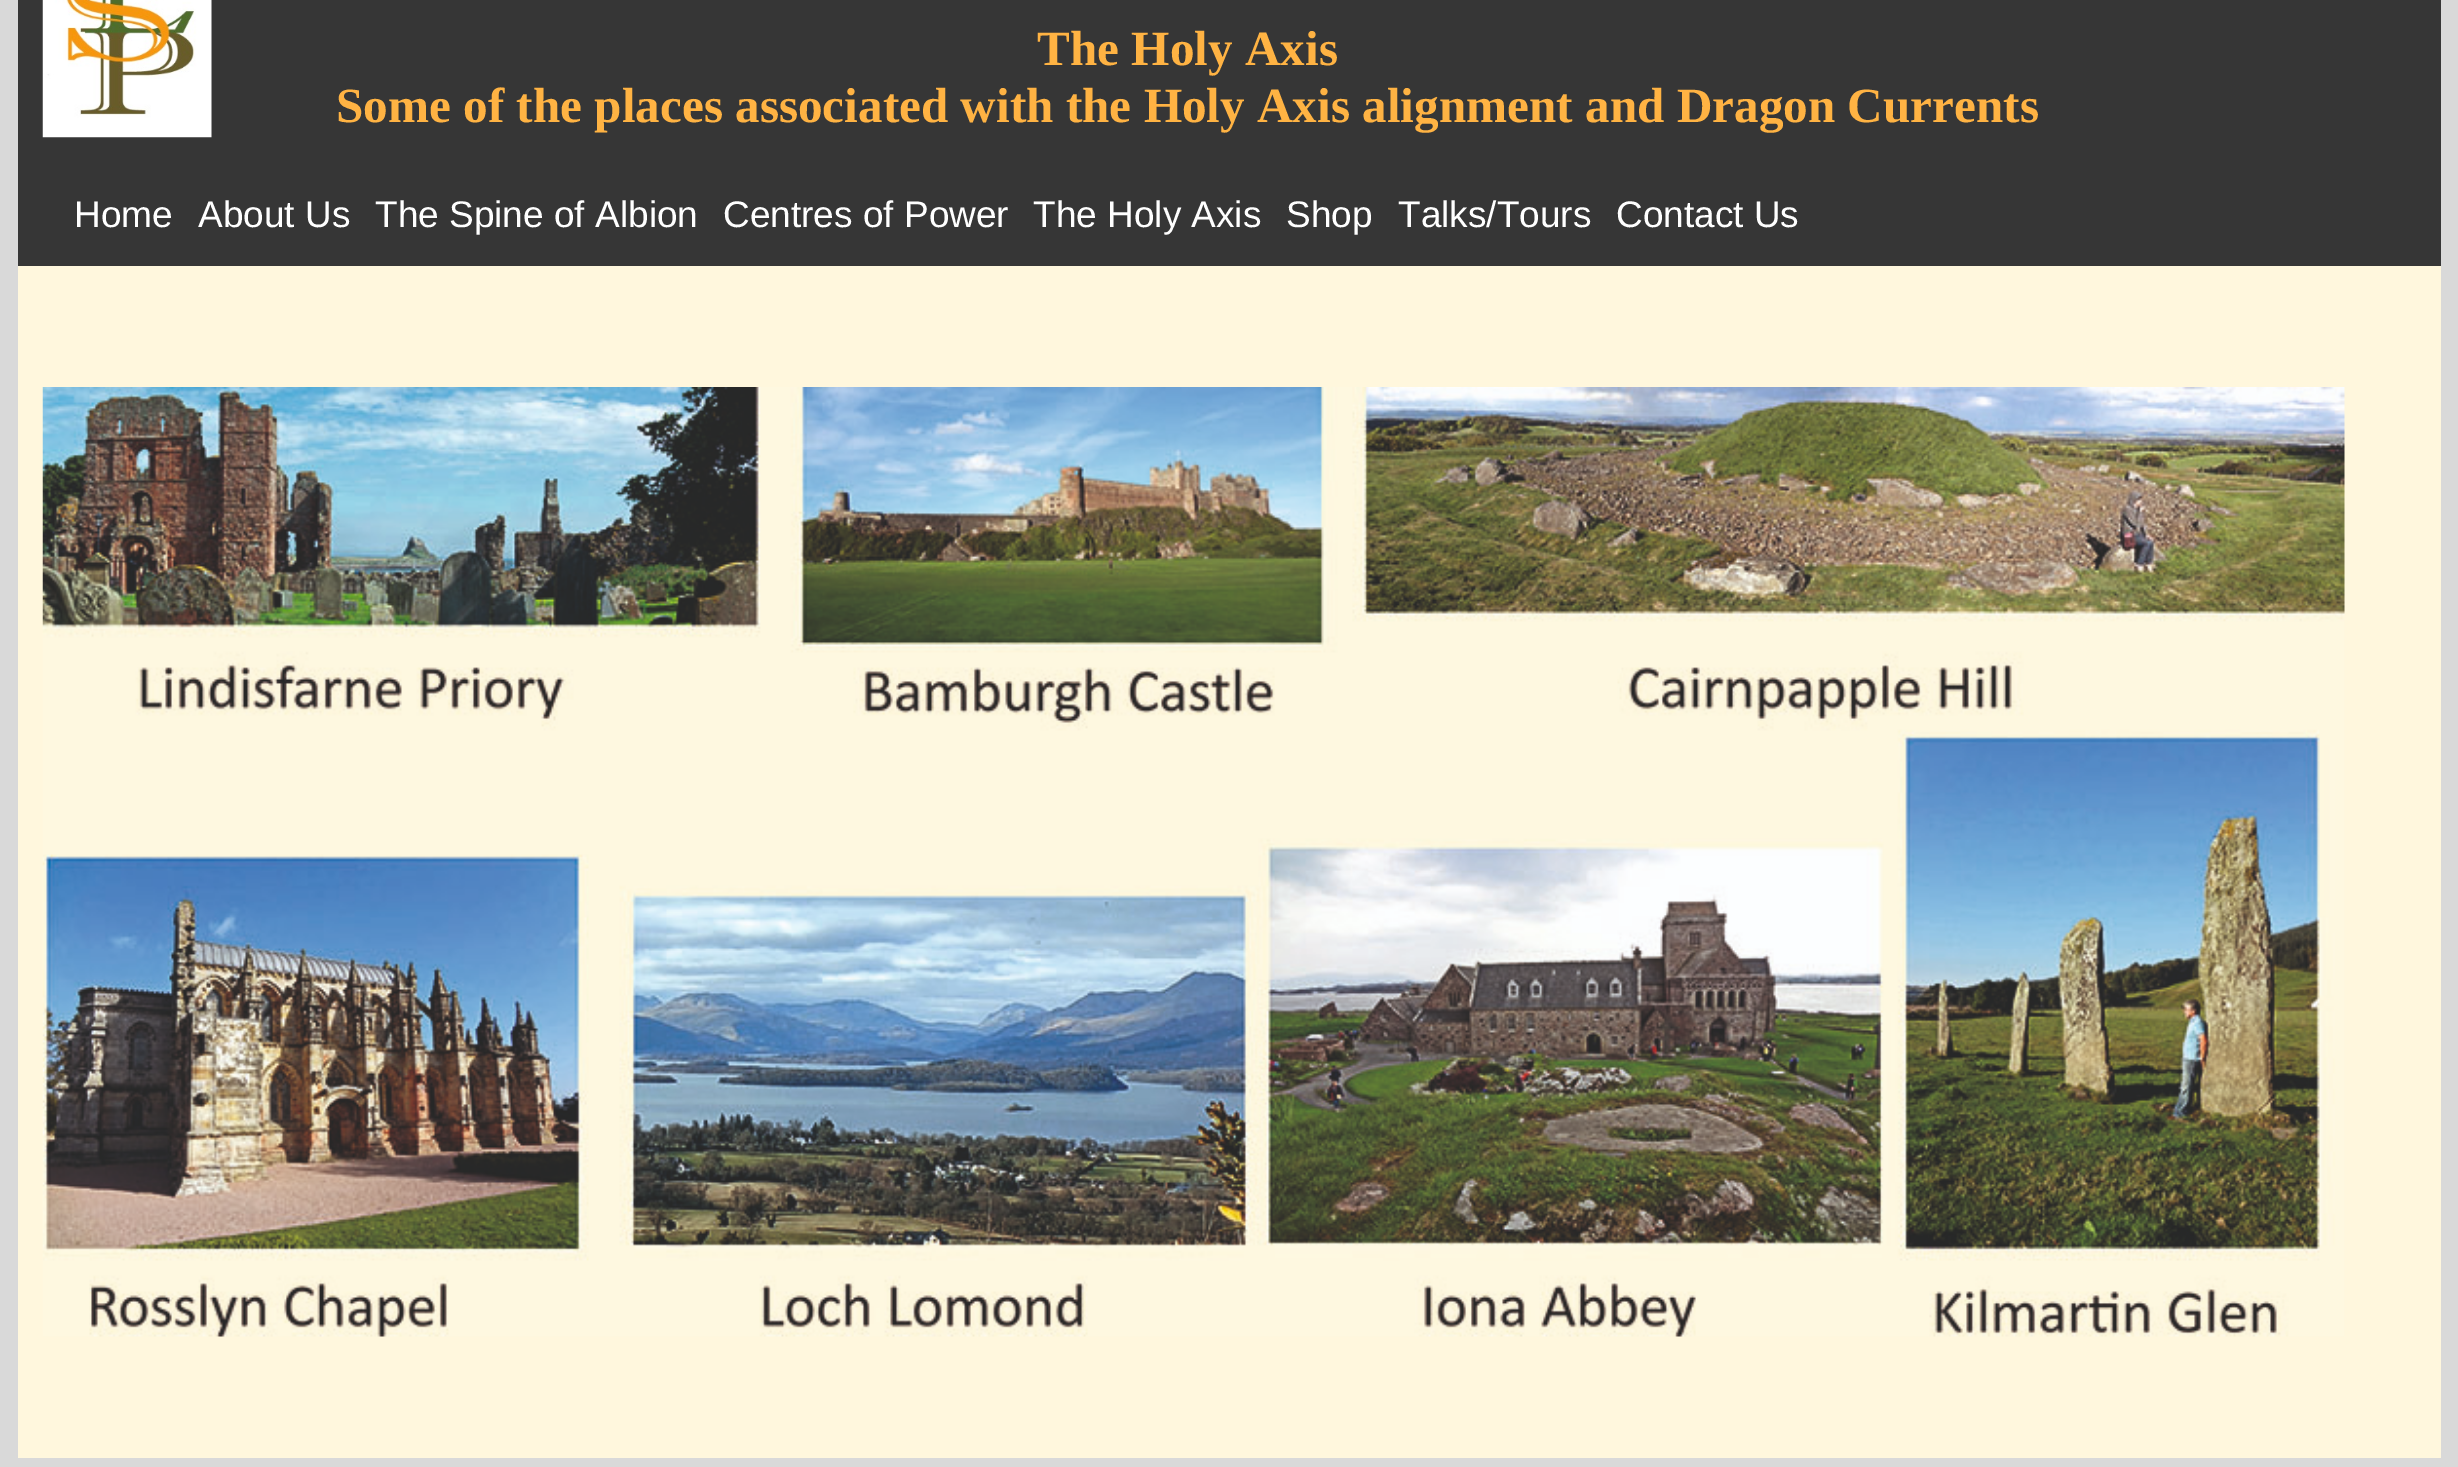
%!PS
<< /PageSize [2458 1467] >> setpagedevice
/rgb { 3 { 255 div 3 1 roll } repeat setrgbcolor } def
/font { [ exch dup neg 0 0 3 -1 roll 0 0 ] selectfont } def
/text { moveto show } def
/picture { 5 dict begin { /h /w /y /x /name } { exch def } forall
  gsave x y translate w h scale
  w h 8 [w 0 0 h 0 0] name (r) file false 3 colorimage grestore end } def
0 1467 translate 1 -1 scale
4 setmiterlimit
217 217 217 rgb
0 0 2458 1467 rectfill
54 54 54 rgb
18 0 2423 266 rectfill
(img_01.rgb) 42 0 170 138 picture
255 247 221 rgb
18 266 2423 1192 rectfill
(img_02.rgb) 42 387 2303 950 picture
/LiberationSerif-Bold 49.2 font
255 179 67 rgb
(The Holy Axis) 1037 65 text
(Some of the places associated with the Holy Axis alignment and Dragon Currents) 336 122 text
/LiberationSans-Regular 37 font
255 255 255 rgb
(Home) 74 227 text
(About Us) 198 227 text
(The Spine of Albion) 375 227 text
(Centres of Power) 723 227 text
(The Holy Axis) 1033 227 text
(Shop) 1286 227 text
(Talks/Tours) 1398 227 text
(Contact Us) 1616 227 text
showpage
